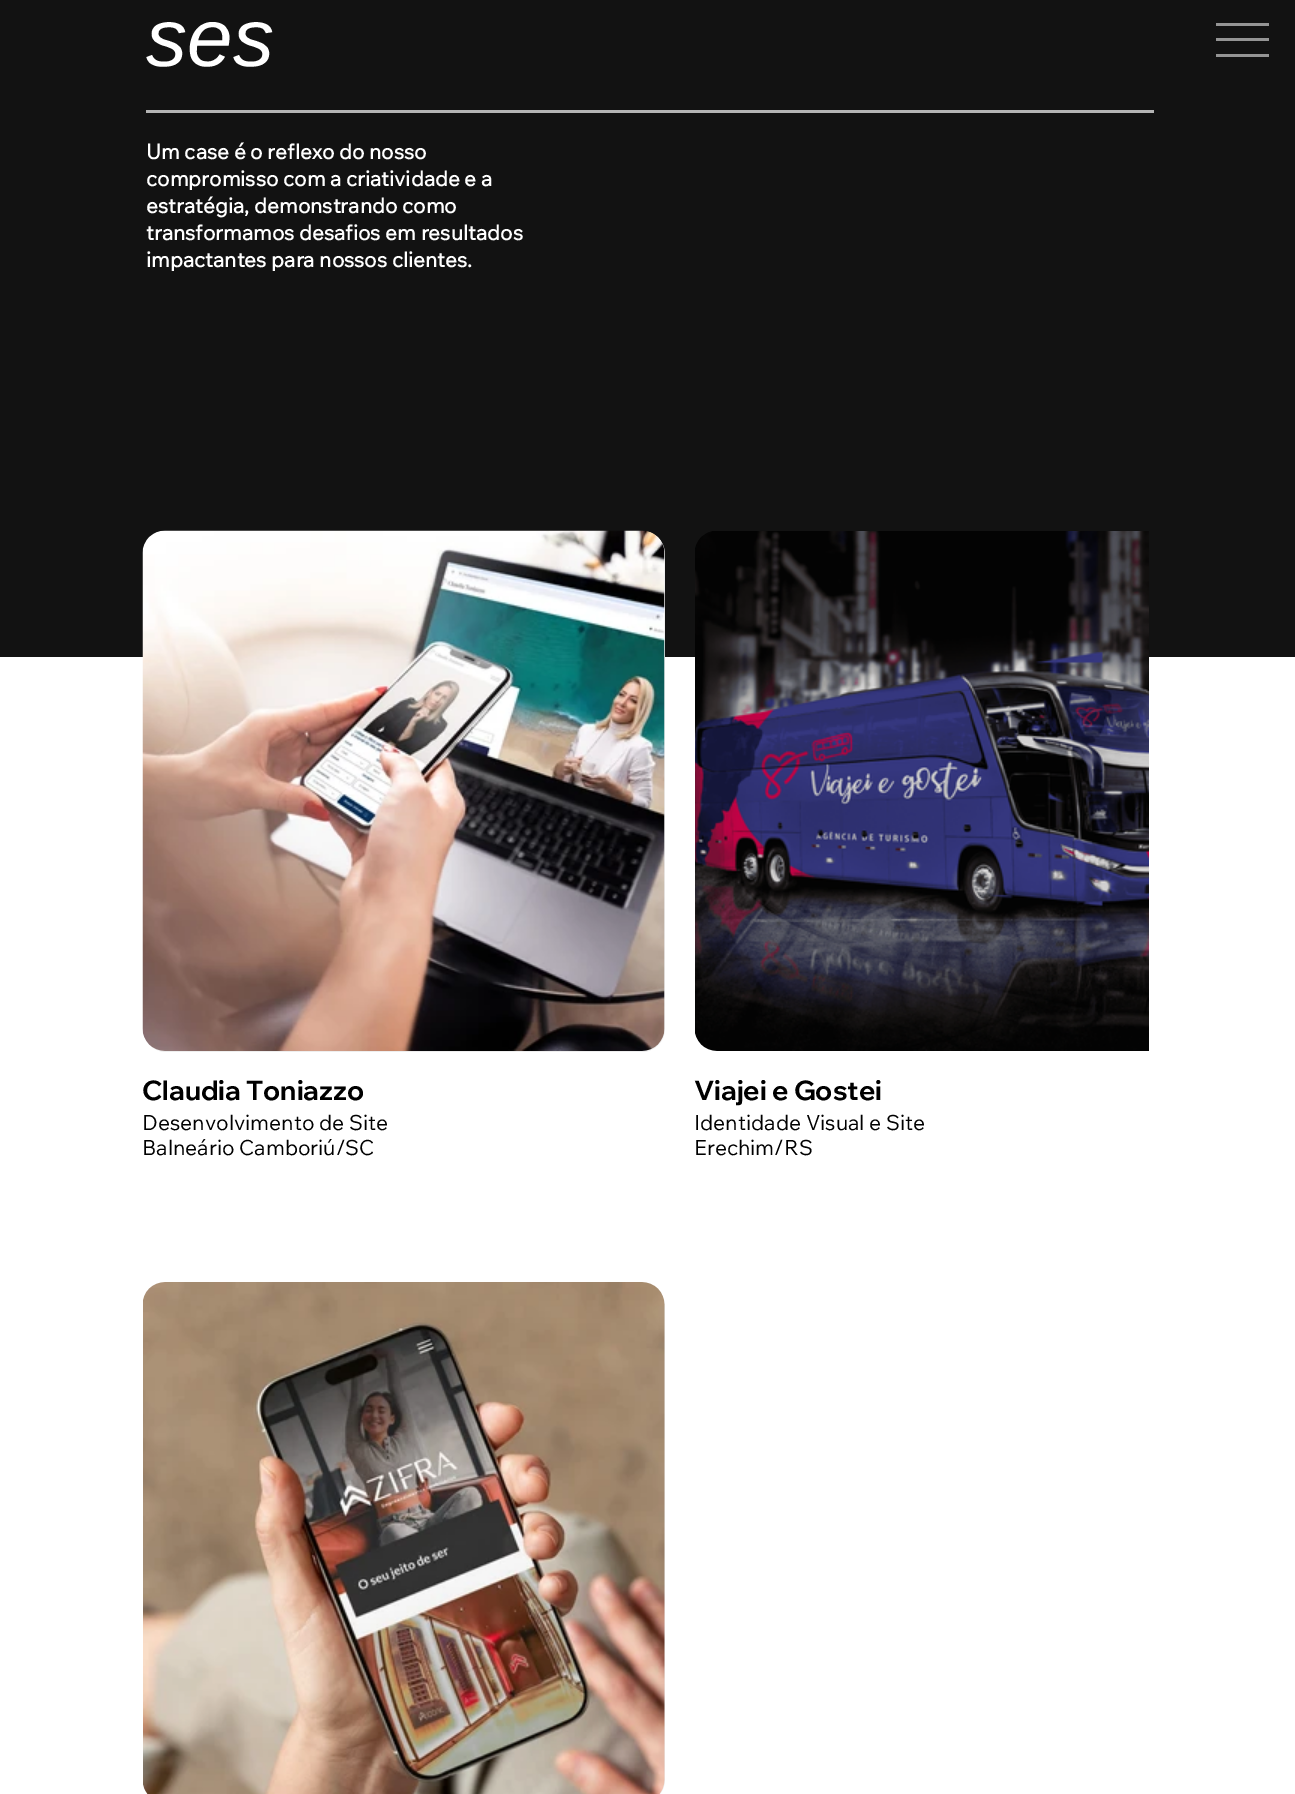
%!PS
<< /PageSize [1295 1794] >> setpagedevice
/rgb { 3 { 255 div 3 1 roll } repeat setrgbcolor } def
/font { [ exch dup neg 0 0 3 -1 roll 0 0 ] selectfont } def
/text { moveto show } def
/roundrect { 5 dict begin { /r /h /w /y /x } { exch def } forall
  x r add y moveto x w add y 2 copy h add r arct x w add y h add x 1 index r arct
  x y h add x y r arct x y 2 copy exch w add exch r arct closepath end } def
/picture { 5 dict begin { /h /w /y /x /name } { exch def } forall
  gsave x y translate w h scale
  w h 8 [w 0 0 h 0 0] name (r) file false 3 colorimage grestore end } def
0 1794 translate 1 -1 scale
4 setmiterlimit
255 255 255 rgb
0 0 1295 1794 rectfill
18 18 18 rgb
0 0 1295 657 rectfill
180 180 180 rgb
146 110 1008 3 rectfill
238 238 238 rgb
143 531 522 521 23 roundrect fill
(img_01.rgb) 142 530 523 521 picture
(img_02.rgb) 695 531 454 520 picture
143 1283 522 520 23 roundrect fill
(img_03.rgb) 143 1282 522 512 picture
148 148 148 rgb
1216 23 53 3 rectfill
1216 38 53 3 rectfill
1216 54 53 3 rectfill
/LiberationSans-Italic 82 font
255 255 255 rgb
(ses) 146 66 text
/WixMadeforText-Bold 20.75 font
(Um case é o reflexo do nosso) 146 159 text
(compromisso com a criatividade e a) 146 186 text
(estratégia, demonstrando como) 146 213 text
(transformamos desafios em resultados) 146 240 text
(impactantes para nossos clientes.) 146 267 text
/WixMadeforDisplay-Bold 27 font
0 0 0 rgb
(Claudia Toniazzo) 142 1100 text
/WixMadeforText-Regular 21 font
(Desenvolvimento de Site) 142 1130 text
(Balneário Camboriú/SC) 142 1155 text
/WixMadeforDisplay-Bold 27 font
(Viajei e Gostei) 694 1100 text
/WixMadeforText-Regular 21 font
(Identidade Visual e Site) 694 1130 text
(Erechim/RS) 694 1155 text
showpage
